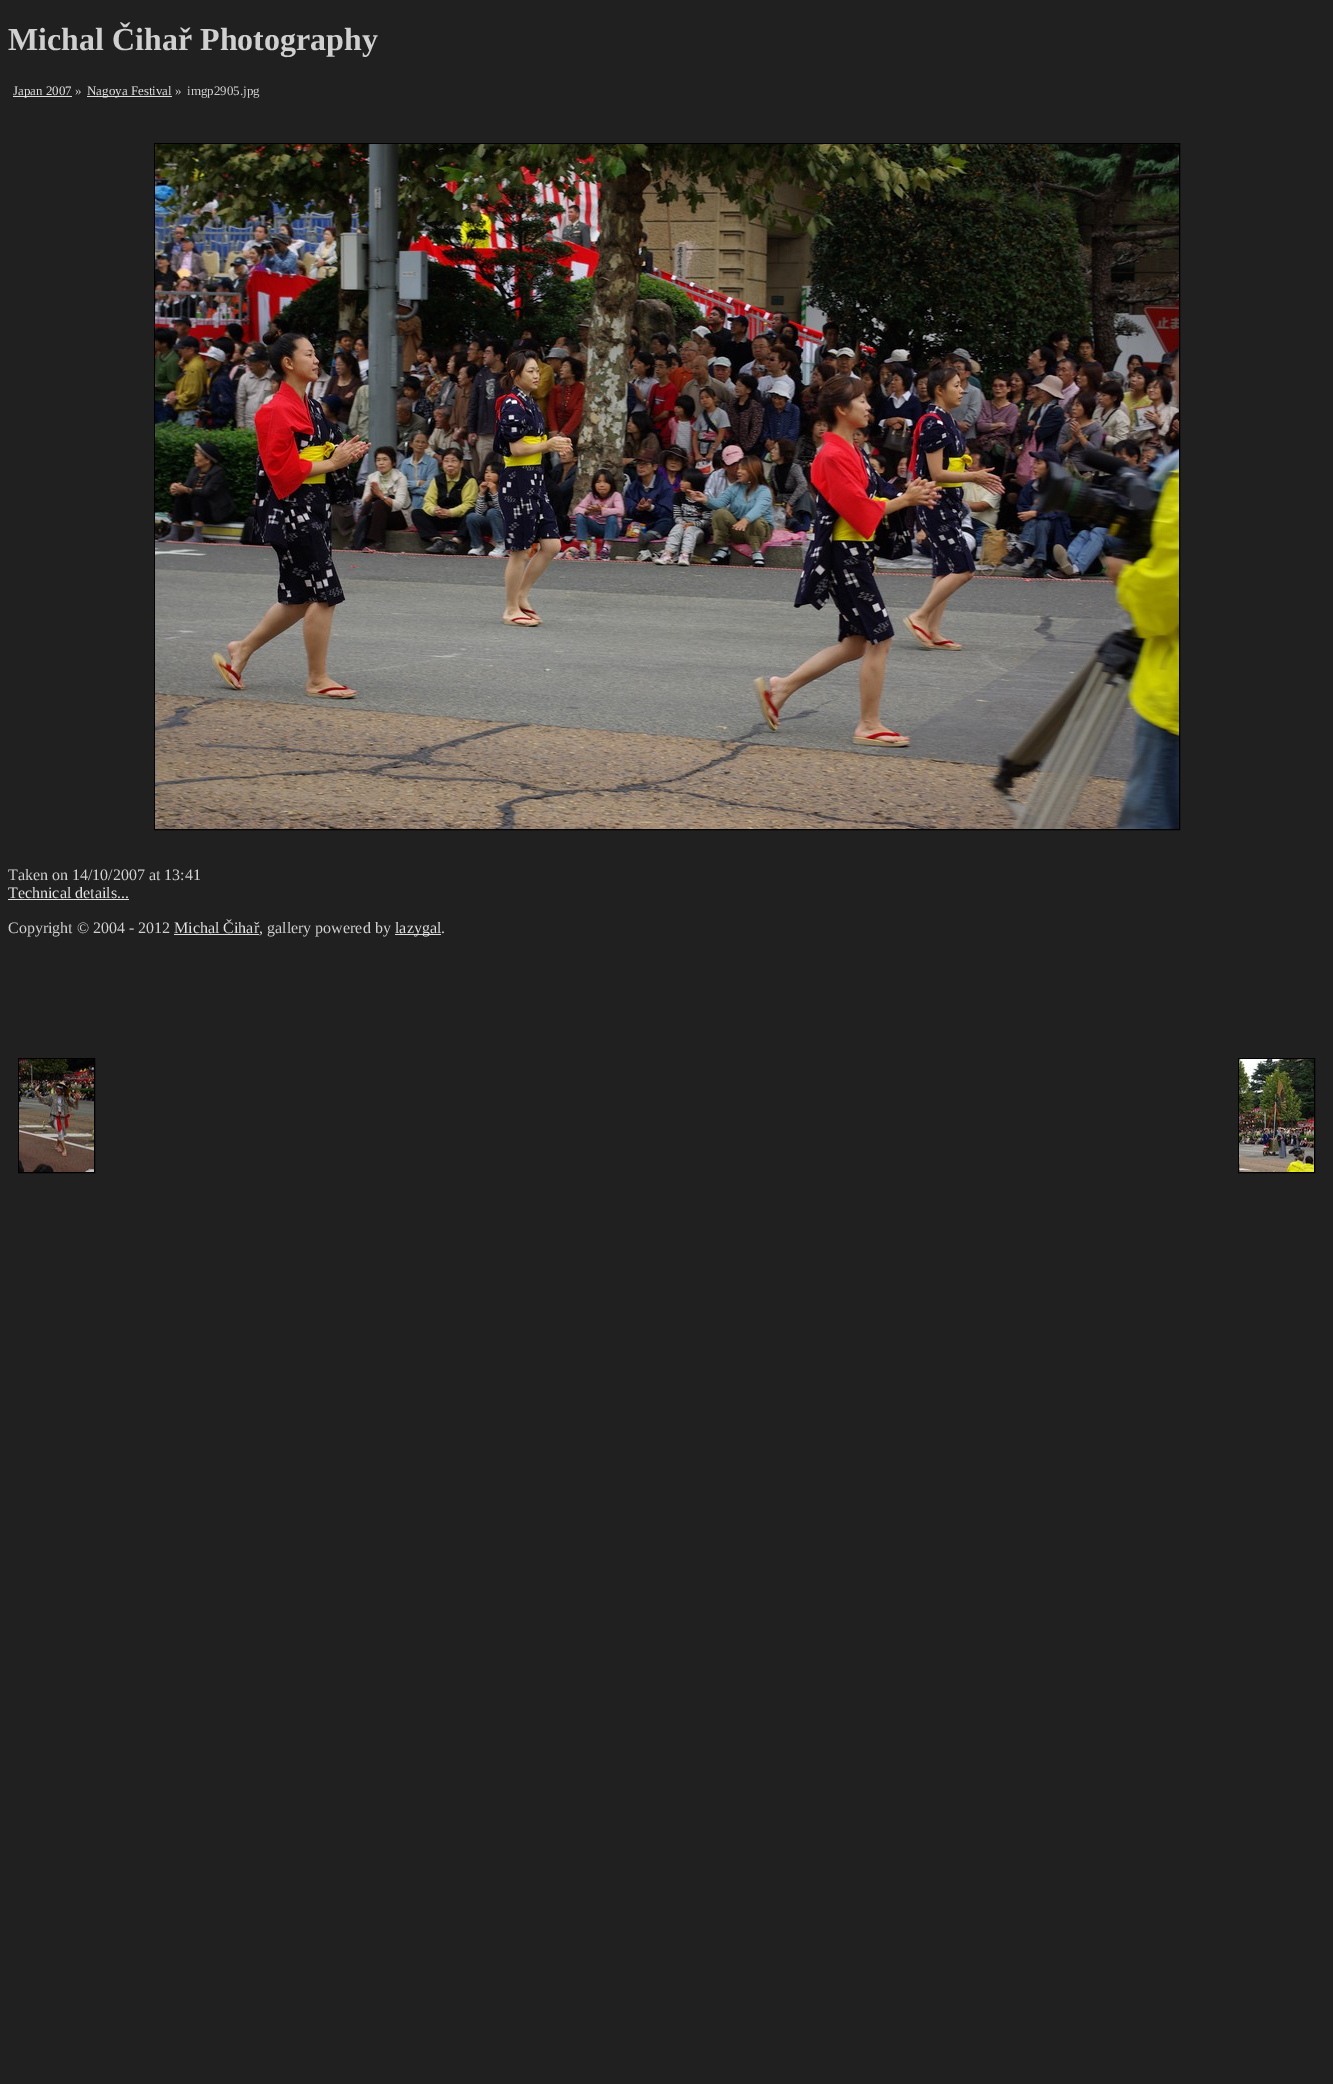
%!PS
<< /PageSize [1333 2084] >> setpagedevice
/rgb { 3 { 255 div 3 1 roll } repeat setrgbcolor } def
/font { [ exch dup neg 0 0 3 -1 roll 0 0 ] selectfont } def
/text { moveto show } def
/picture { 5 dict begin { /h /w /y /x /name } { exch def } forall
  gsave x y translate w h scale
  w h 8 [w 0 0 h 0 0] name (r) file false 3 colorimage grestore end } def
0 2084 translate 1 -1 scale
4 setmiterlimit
32 32 32 rgb
0 0 1333 2084 rectfill
224 224 224 rgb
13 96 59 1 rectfill
87 96 85 1 rectfill
0 0 0 rgb
154.5 143.5 1025 686 rectstroke
(img_01.rgb) 155 144 1024 685 picture
224 224 224 rgb
8 899 121 1 rectfill
174 934 85 1 rectfill
395 934 46 1 rectfill
0 0 0 rgb
18.5 1058.5 76 114 rectstroke
(img_02.rgb) 19 1059 75 113 picture
1238.5 1058.5 76 114 rectstroke
(img_03.rgb) 1239 1059 75 113 picture
/LiberationSerif-Bold 32 font
208 208 208 rgb
(Michal Čihař Photography) 8 50 text
/LiberationSerif-Regular 13 font
224 224 224 rgb
(Japan 2007) 13 95 text
208 208 208 rgb
(») 75 95 text
224 224 224 rgb
(Nagoya Festival) 87 95 text
208 208 208 rgb
(») 175 95 text
(imgp2905.jpg) 187 95 text
/LiberationSerif-Regular 16 font
(Taken on 14/10/2007 at 13:41) 8 880 text
224 224 224 rgb
(Technical details...) 8 898 text
208 208 208 rgb
(Copyright © 2004 - 2012) 8 933 text
224 224 224 rgb
(Michal Čihař) 174 933 text
208 208 208 rgb
(, gallery powered by) 259 933 text
224 224 224 rgb
(lazygal) 395 933 text
208 208 208 rgb
(.) 441 933 text
showpage
